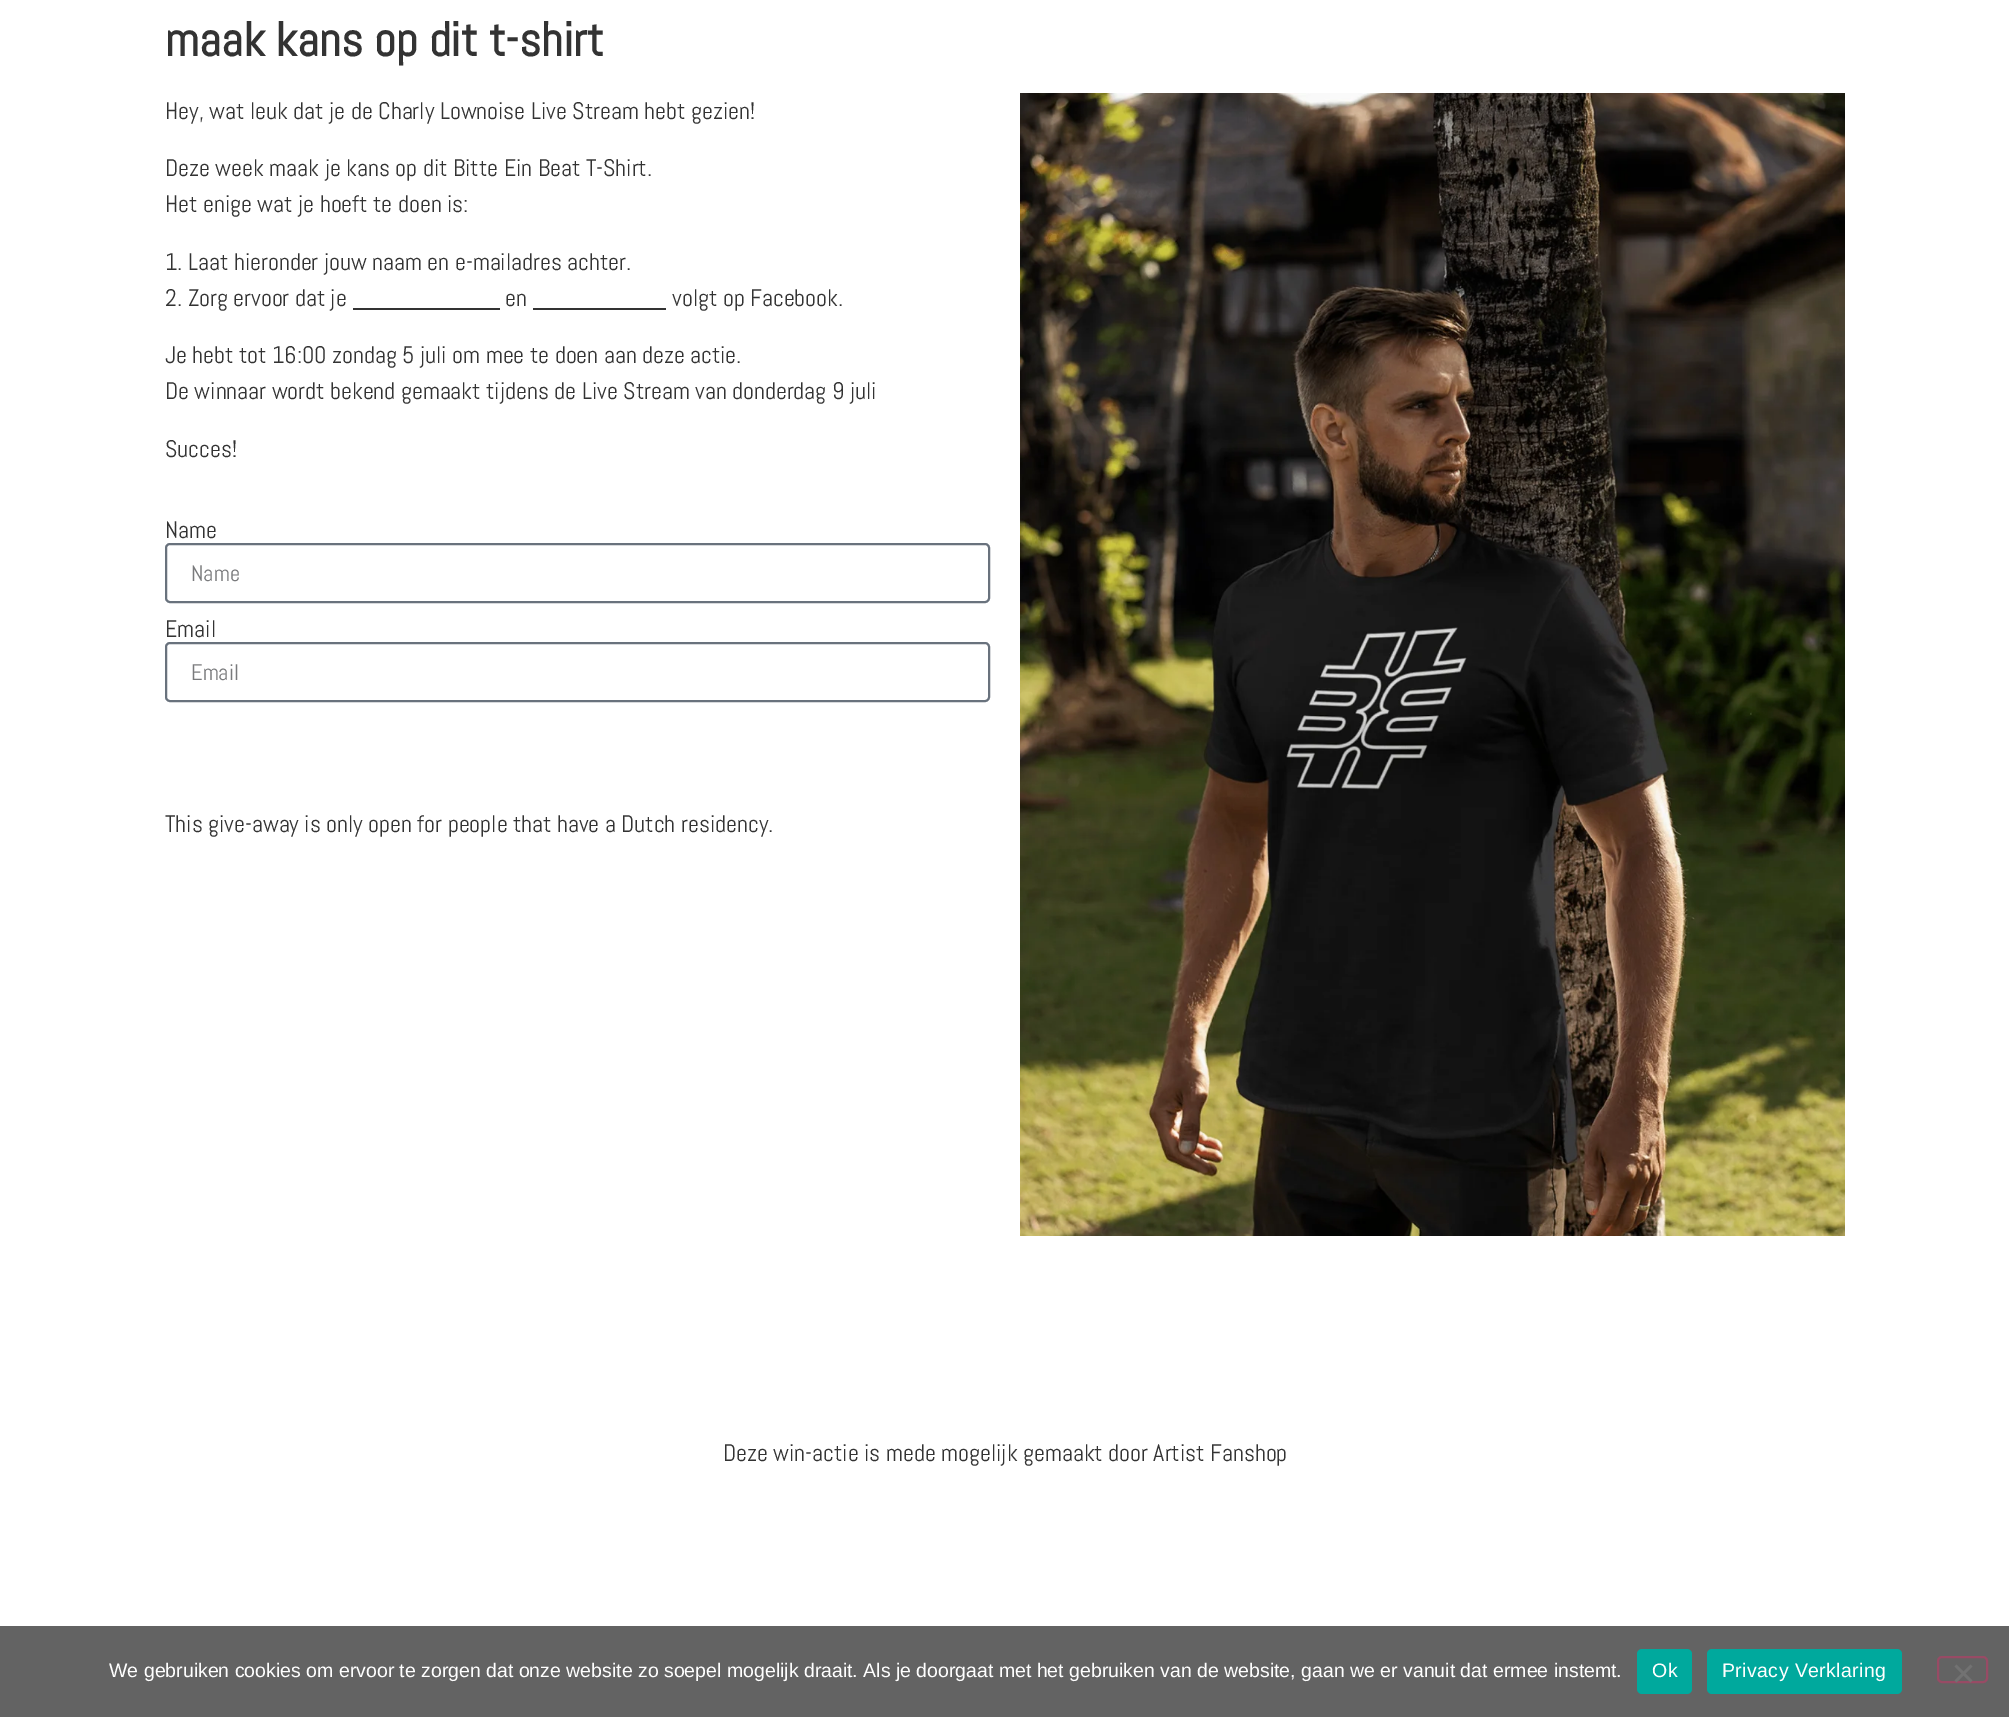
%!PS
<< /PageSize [2009 1717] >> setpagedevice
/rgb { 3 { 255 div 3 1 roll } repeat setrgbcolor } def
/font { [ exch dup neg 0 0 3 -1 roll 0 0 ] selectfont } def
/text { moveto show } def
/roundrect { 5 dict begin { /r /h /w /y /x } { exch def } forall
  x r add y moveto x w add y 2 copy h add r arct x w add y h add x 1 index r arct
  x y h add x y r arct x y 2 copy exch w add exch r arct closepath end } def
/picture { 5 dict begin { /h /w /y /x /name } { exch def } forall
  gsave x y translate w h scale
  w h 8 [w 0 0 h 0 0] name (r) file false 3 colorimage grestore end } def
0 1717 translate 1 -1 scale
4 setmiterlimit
255 255 255 rgb
0 0 2009 1717 rectfill
51 51 51 rgb
353 308 147 2 rectfill
533 308 133 2 rectfill
105 114 125 rgb
2 setlinewidth
166 544 823 58 4 roundrect stroke
166 643 823 58 4 roundrect stroke
(img_01.rgb) 1020 93 825 1143 picture
99 99 99 rgb
0 1626 2009 91 rectfill
0 169 157 rgb
1637 1649 55 45 5 roundrect fill
1707 1649 195 45 5 roundrect fill
152 75 101 rgb
1938 1657 49 25 4 roundrect stroke
114 114 114 rgb
1970.5 1664.5 moveto 2 2 rlineto -16 16 rlineto -2 -2 rlineto closepath fill
1954.5 1666.5 moveto 2 -2 rlineto 16 16 rlineto -2 2 rlineto closepath fill
/Abel-Bold 48 font
51 51 51 rgb
(maak kans op dit t-shirt) 165 56 text
/Abel-Regular 24 font
(Hey, wat leuk dat je de Charly Lownoise Live Stream hebt gezien!) 165 119 text
(Deze week maak je kans op dit Bitte Ein Beat T-Shirt.) 165 176 text
(Het enige wat je hoeft te doen is:) 165 212 text
(1. Laat hieronder jouw naam en e-mailadres achter.) 165 270 text
(2. Zorg ervoor dat je) 165 306 text
(en) 505 306 text
(volgt op Facebook.) 672 306 text
(Je hebt tot 16:00 zondag 5 juli om mee te doen aan deze actie.) 165 363 text
(De winnaar wordt bekend gemaakt tijdens de Live Stream van donderdag 9 juli) 165 399 text
(Succes!) 165 457 text
(Name) 165 538 text
/Abel-Regular 22.5 font
121 122 124 rgb
(Name) 191 581 text
/Abel-Regular 24 font
51 51 51 rgb
(Email) 165 637 text
/Abel-Regular 22.5 font
121 122 124 rgb
(Email) 191 680 text
/Abel-Regular 24 font
51 51 51 rgb
(This give-away is only open for people that have a Dutch residency.) 165 832 text
(Deze win-actie is mede mogelijk gemaakt door Artist Fanshop) 723 1461 text
/LiberationSans-Regular 19.5 font
255 255 255 rgb
(We gebruiken cookies om ervoor te zorgen dat onze website zo soepel mogelijk draait. Als je doorgaat met het gebruiken van de website, gaan we er vanuit dat ermee instemt.) 109 1677 text
1652 1677 moveto 0.4 0 (Ok) ashow
1722 1677 moveto 0.4 0 (Privacy Verklaring) ashow
showpage
